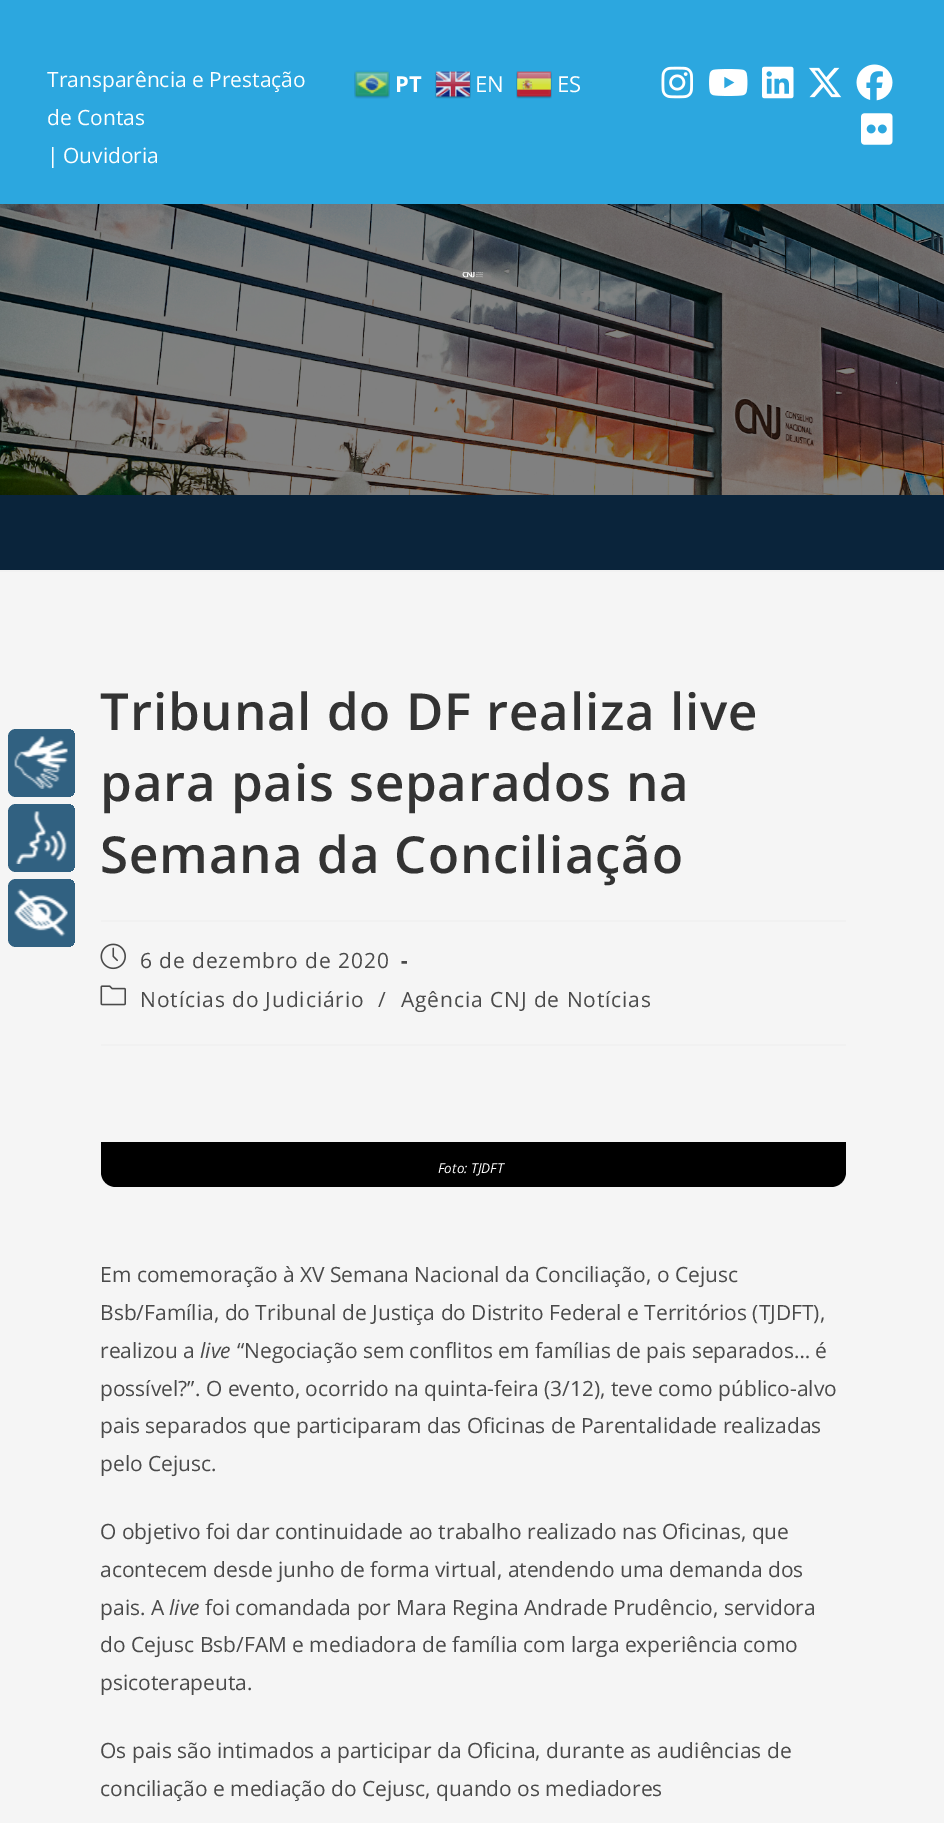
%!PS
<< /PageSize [944 1823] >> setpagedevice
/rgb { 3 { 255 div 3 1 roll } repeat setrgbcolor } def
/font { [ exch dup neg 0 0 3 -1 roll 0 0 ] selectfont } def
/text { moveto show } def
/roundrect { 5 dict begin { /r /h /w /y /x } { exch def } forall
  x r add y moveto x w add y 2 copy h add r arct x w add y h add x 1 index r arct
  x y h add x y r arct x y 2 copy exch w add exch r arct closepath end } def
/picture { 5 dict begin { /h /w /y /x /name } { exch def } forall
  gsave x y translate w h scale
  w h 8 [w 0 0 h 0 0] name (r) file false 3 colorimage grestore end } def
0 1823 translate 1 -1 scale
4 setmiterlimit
245 245 245 rgb
0 0 944 1823 rectfill
49 97 129 rgb
8 729 67 68 8 roundrect fill
(img_01.rgb) 14 736 54 53 picture
gsave
8 729 67 68 8 roundrect clip newpath
68 729 7 68 rectfill
grestore
8 804 67 68 8 roundrect fill
(img_02.rgb) 15 811 52 53 picture
gsave
8 804 67 68 8 roundrect clip newpath
68 804 7 68 rectfill
grestore
8 879 67 68 8 roundrect fill
(img_03.rgb) 14 889 54 48 picture
gsave
8 879 67 68 8 roundrect clip newpath
68 879 7 68 rectfill
grestore
44 167 223 rgb
0 0 944 204 rectfill
(img_04.rgb) 354 70 36 29 picture
(img_05.rgb) 435 71 36 28 picture
(img_06.rgb) 516 71 36 28 picture
(img_07.rgb) 661 66 32 33 picture
(img_08.rgb) 709 69 39 27 picture
(img_09.rgb) 762 66 32 33 picture
(img_10.rgb) 809 67 33 31 picture
(img_11.rgb) 856 64 37 37 picture
(img_12.rgb) 861 113 32 32 picture
(img_13.rgb) 0 204 944 291 picture
241 241 241 rgb
0 570 944 2 rectfill
(img_14.rgb) 462 272 21 6 picture
10 36 59 rgb
0 495 944 75 rectfill
241 241 241 rgb
101 920 745 2 rectfill
101 1044 745 2 rectfill
(img_15.rgb) 100 943 26 27 picture
(img_16.rgb) 100 985 26 21 picture
0 0 0 rgb
101 1142 moveto 745 0 rlineto 0 30 rlineto 0 8.5 -6.5 15 -15 15 rcurveto -715 0 rlineto -8.5 0 -15 -6.5 -15 -15 rcurveto closepath fill
/OpenSans-Regular 21 font
255 255 255 rgb
(Transparência e Prestação) 47 87 text
(de Contas) 47 125 text
(|) 47 163 text
(Ouvidoria) 63 163 text
/OpenSans-Bold 22 font
(PT) 395 92 text
/OpenSans-Regular 22 font
(EN) 475 92 text
(ES) 557 92 text
/OpenSans-SemiBold 51 font
51 51 51 rgb
100 730 moveto 0.9 0 (Tribunal do DF realiza live) ashow
100 801 moveto 0.9 0 (para pais separados na) ashow
100 873 moveto 0.9 0 (Semana da Conciliação) ashow
/OpenSans-Regular 21 font
74 74 74 rgb
140 968 moveto 0.9 0 (6 de dezembro de 2020) ashow
/OpenSans-Bold 21 font
401 968 moveto 0.9 0 (-) ashow
/OpenSans-Regular 21 font
140 1007 moveto 0.9 0 (Notícias do Judiciário) ashow
378 1007 moveto 0.9 0 (/) ashow
401 1007 moveto 0.9 0 (Agência CNJ de Notícias) ashow
/OpenSans-Italic 13.5 font
255 255 255 rgb
(Foto: TJDFT) 438 1173 text
/OpenSans-Regular 21 font
74 74 74 rgb
(Em comemoração à XV Semana Nacional da Conciliação, o Cejusc) 100 1282 text
(Bsb/Família, do Tribunal de Justiça do Distrito Federal e Territórios \(TJDFT\),) 100 1320 text
(realizou a) 100 1358 text
/OpenSans-Italic 21 font
(live) 200 1358 text
/OpenSans-Regular 21 font
(“Negociação sem conflitos em famílias de pais separados… é) 237 1358 text
(possível?”. O evento, ocorrido na quinta-feira \(3/12\), teve como público-alvo) 100 1396 text
(pais separados que participaram das Oficinas de Parentalidade realizadas) 100 1433 text
(pelo Cejusc.) 100 1471 text
(O objetivo foi dar continuidade ao trabalho realizado nas Oficinas, que) 100 1539 text
(acontecem desde junho de forma virtual, atendendo uma demanda dos) 100 1577 text
(pais. A) 100 1615 text
/OpenSans-Italic 21 font
(live) 169 1615 text
/OpenSans-Regular 21 font
(foi comandada por Mara Regina Andrade Prudêncio, servidora) 205 1615 text
(do Cejusc Bsb/FAM e mediadora de família com larga experiência como) 100 1652 text
(psicoterapeuta.) 100 1690 text
(Os pais são intimados a participar da Oficina, durante as audiências de) 100 1758 text
(conciliação e mediação do Cejusc, quando os mediadores) 100 1796 text
showpage
